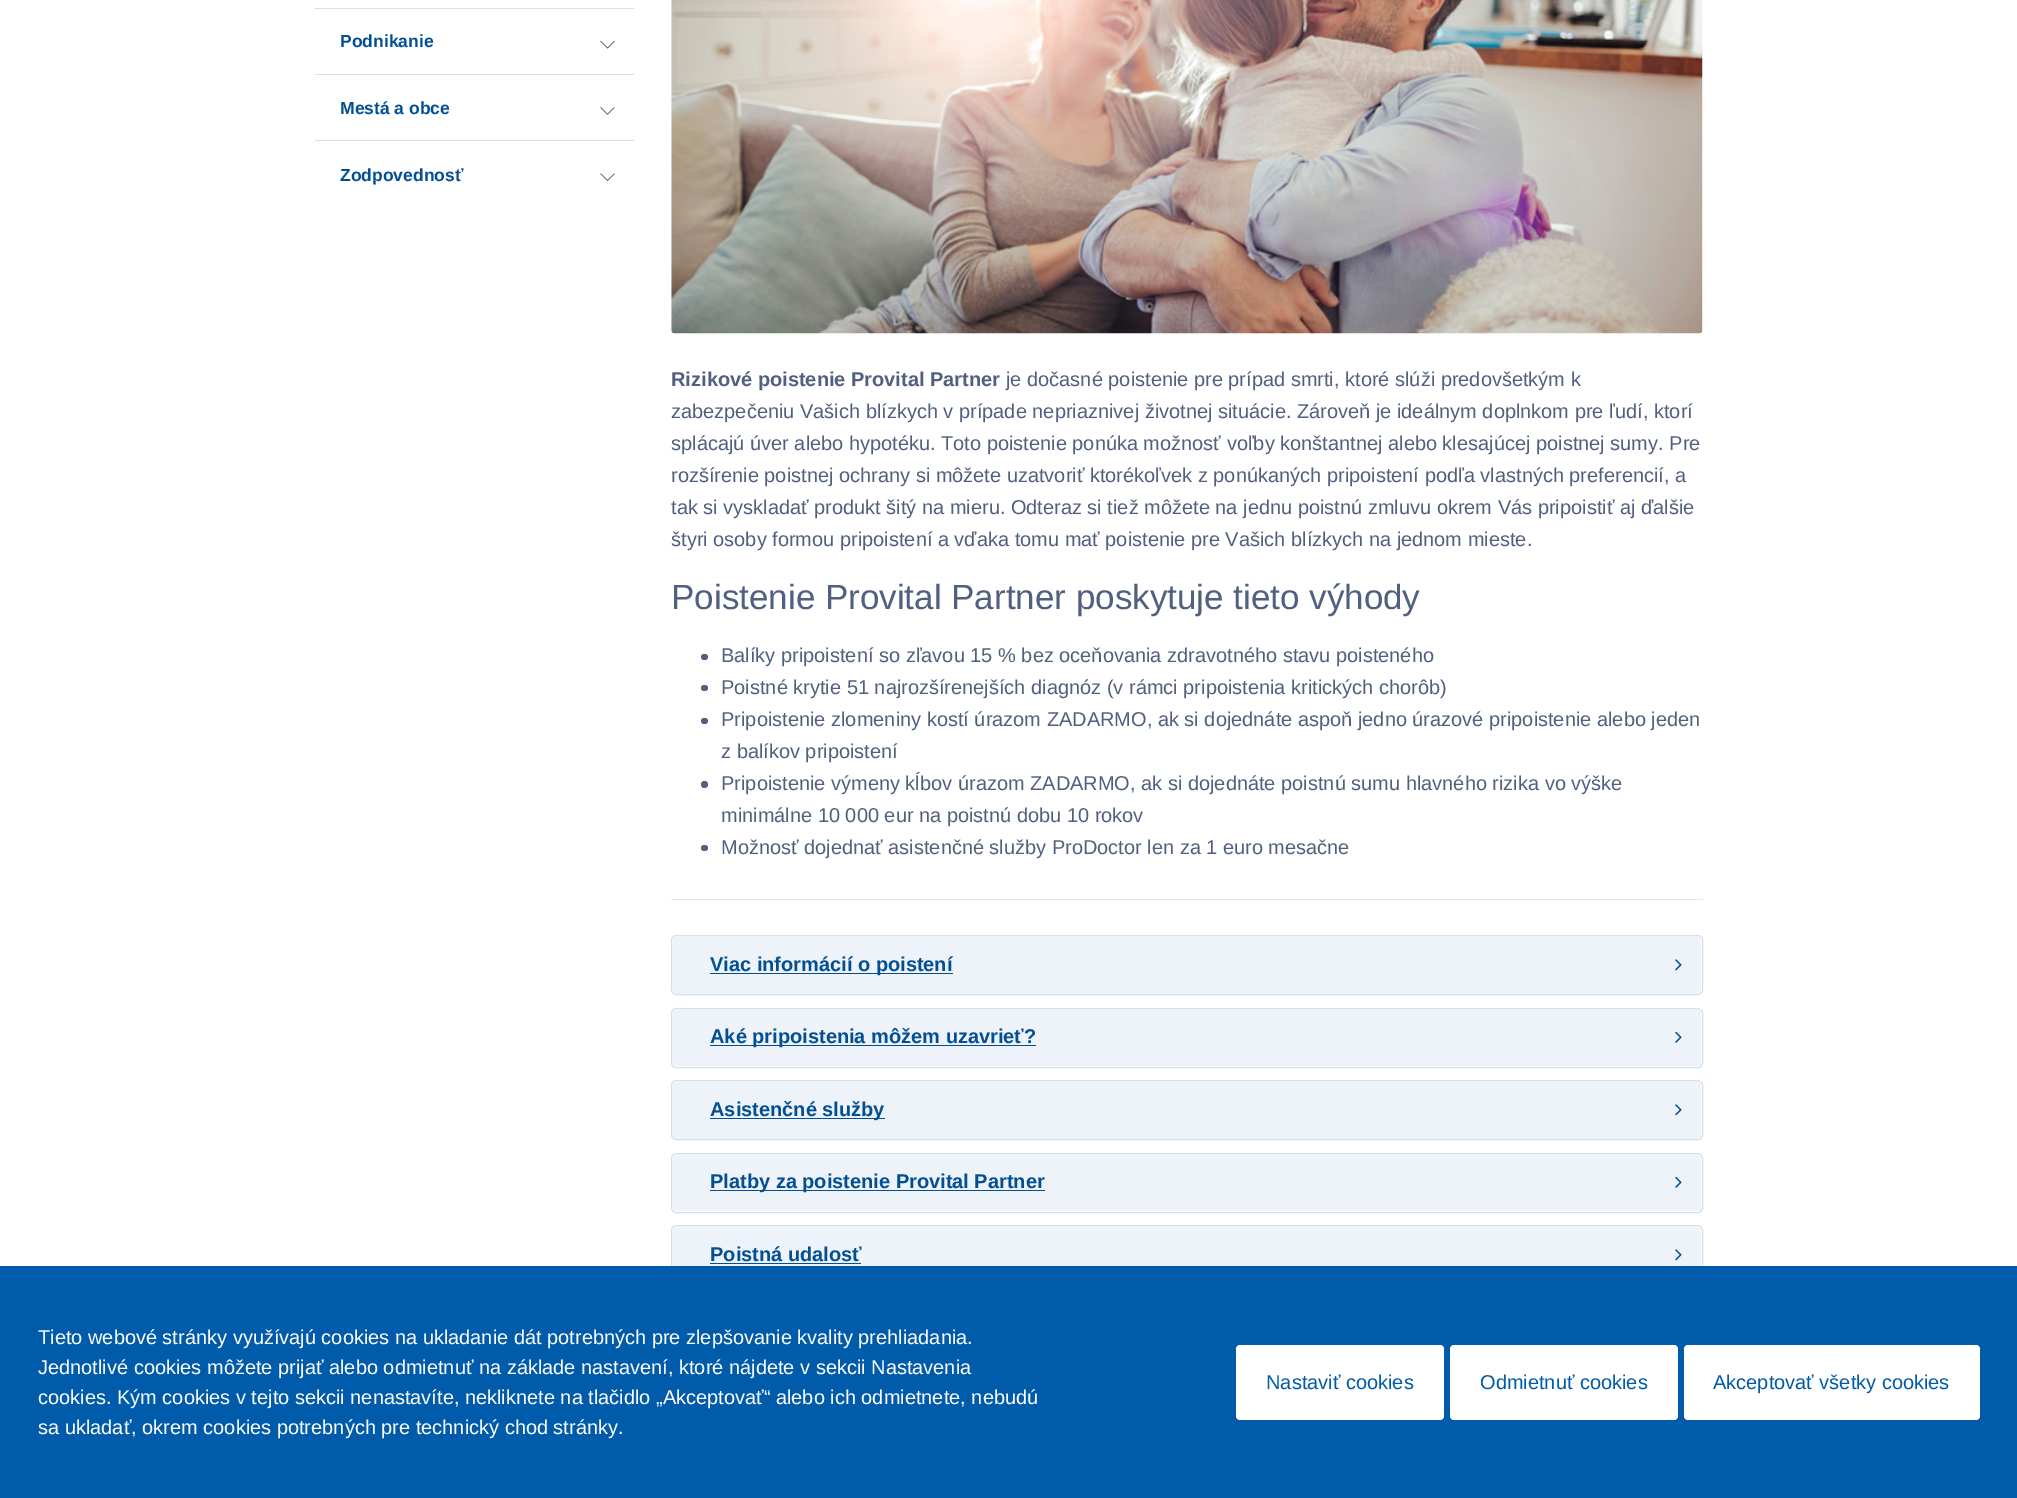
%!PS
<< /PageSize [2017 1498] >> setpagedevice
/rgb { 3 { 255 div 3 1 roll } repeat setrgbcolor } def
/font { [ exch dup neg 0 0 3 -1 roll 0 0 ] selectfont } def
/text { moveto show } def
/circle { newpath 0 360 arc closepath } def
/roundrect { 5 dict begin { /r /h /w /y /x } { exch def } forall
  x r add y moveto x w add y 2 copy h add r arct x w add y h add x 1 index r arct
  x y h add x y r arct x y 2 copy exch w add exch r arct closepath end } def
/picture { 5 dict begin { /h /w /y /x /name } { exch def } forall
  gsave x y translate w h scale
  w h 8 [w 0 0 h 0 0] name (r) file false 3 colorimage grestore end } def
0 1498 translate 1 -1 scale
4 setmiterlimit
255 255 255 rgb
0 0 2017 1498 rectfill
212 224 236 rgb
315 8 319 1 rectfill
(img_01.rgb) 600 40 15 9 picture
315 74 319 1 rectfill
(img_02.rgb) 600 107 15 8 picture
315 140 319 1 rectfill
(img_03.rgb) 600 173 15 8 picture
(img_04.rgb) 671 0 1032 334 picture
81 96 128 rgb
701 654 7 6 3 roundrect fill
701 685 7 6 3 roundrect fill
701 718 7 6 3 roundrect fill
704.5 784.5 3.5 circle fill
701 845 7 6 3 roundrect fill
230 230 230 rgb
671 899 1032 1 rectfill
212 224 236 rgb
671.5 935.5 1031 59 4.5 roundrect stroke
237 243 249 rgb
673 936 1028 58 2.5 roundrect fill
2 79 147 rgb
710 973 243 1 rectfill
(img_05.rgb) 1675 959 7 12 picture
212 224 236 rgb
671.5 1008.5 1031 59 4.5 roundrect stroke
237 243 249 rgb
673 1009 1028 57 2.5 roundrect fill
2 79 147 rgb
710 1045 326 1 rectfill
(img_06.rgb) 1675 1031 7 12 picture
212 224 236 rgb
671.5 1080.5 1031 59 4.5 roundrect stroke
237 243 249 rgb
673 1081 1028 58 2.5 roundrect fill
2 79 147 rgb
710 1118 175 1 rectfill
(img_05.rgb) 1675 1104 7 12 picture
212 224 236 rgb
671.5 1153.5 1031 59 4.5 roundrect stroke
237 243 249 rgb
673 1154 1028 57 2.5 roundrect fill
2 79 147 rgb
710 1190 335 1 rectfill
(img_06.rgb) 1675 1176 7 12 picture
212 224 236 rgb
671.5 1225.5 1031 59 4.5 roundrect stroke
237 243 249 rgb
673 1226 1028 58 2.5 roundrect fill
2 79 147 rgb
710 1263 151 1 rectfill
(img_05.rgb) 1675 1249 7 12 picture
0 91 170 rgb
0 1266 2017 232 rectfill
255 255 255 rgb
1236 1345 208 75 4 roundrect fill
1450 1345 228 75 4 roundrect fill
1684 1345 296 75 4 roundrect fill
/LiberationSans-Bold 17.5 font
2 79 147 rgb
(Podnikanie) 340 47 text
(Mestá a obce) 340 114 text
(Zodpovednosť) 340 181 text
/LiberationSans-Bold 20 font
81 96 128 rgb
(Rizikové poistenie Provital Partner) 671 386 text
/LiberationSans-Regular 20 font
(je dočasné poistenie pre prípad smrti, ktoré slúži predovšetkým k) 1006 386 text
(zabezpečeniu Vašich blízkych v prípade nepriaznivej životnej situácie. Zároveň je ideálnym doplnkom pre ľudí, ktorí) 671 418 text
(splácajú úver alebo hypotéku. Toto poistenie ponúka možnosť voľby konštantnej alebo klesajúcej poistnej sumy. Pre) 671 450 text
(rozšírenie poistnej ochrany si môžete uzatvoriť ktorékoľvek z ponúkaných pripoistení podľa vlastných preferencií, a) 671 482 text
(tak si vyskladať produkt šitý na mieru. Odteraz si tiež môžete na jednu poistnú zmluvu okrem Vás pripoistiť aj ďalšie) 671 514 text
(štyri osoby formou pripoistení a vďaka tomu mať poistenie pre Vašich blízkych na jednom mieste.) 671 546 text
/LiberationSans-Regular 35 font
(Poistenie Provital Partner poskytuje tieto výhody) 671 609 text
/LiberationSans-Regular 20 font
(Balíky pripoistení so zľavou 15 % bez oceňovania zdravotného stavu poisteného) 721 662 text
(Poistné krytie 51 najrozšírenejších diagnóz \(v rámci pripoistenia kritických chorôb\)) 721 694 text
(Pripoistenie zlomeniny kostí úrazom ZADARMO, ak si dojednáte aspoň jedno úrazové pripoistenie alebo jeden) 721 726 text
(z balíkov pripoistení) 721 758 text
(Pripoistenie výmeny kĺbov úrazom ZADARMO, ak si dojednáte poistnú sumu hlavného rizika vo výške) 721 790 text
(minimálne 10 000 eur na poistnú dobu 10 rokov) 721 822 text
(Možnosť dojednať asistenčné služby ProDoctor len za 1 euro mesačne) 721 854 text
/LiberationSans-Bold 20 font
2 79 147 rgb
(Viac informácií o poistení) 710 971 text
(Aké pripoistenia môžem uzavrieť?) 710 1043 text
(Asistenčné služby) 710 1116 text
(Platby za poistenie Provital Partner) 710 1188 text
(Poistná udalosť) 710 1261 text
/LiberationSans-Regular 20 font
255 255 255 rgb
(Tieto webové stránky využívajú cookies na ukladanie dát potrebných pre zlepšovanie kvality prehliadania.) 38 1344 text
(Jednotlivé cookies môžete prijať alebo odmietnuť na základe nastavení, ktoré nájdete v sekcii Nastavenia) 38 1374 text
(cookies. Kým cookies v tejto sekcii nenastavíte, nekliknete na tlačidlo „Akceptovať“ alebo ich odmietnete, nebudú) 38 1404 text
(sa ukladať, okrem cookies potrebných pre technický chod stránky.) 38 1434 text
0 91 170 rgb
(Nastaviť cookies) 1266 1389 text
(Odmietnuť cookies) 1480 1389 text
(Akceptovať všetky cookies) 1713 1389 text
showpage
